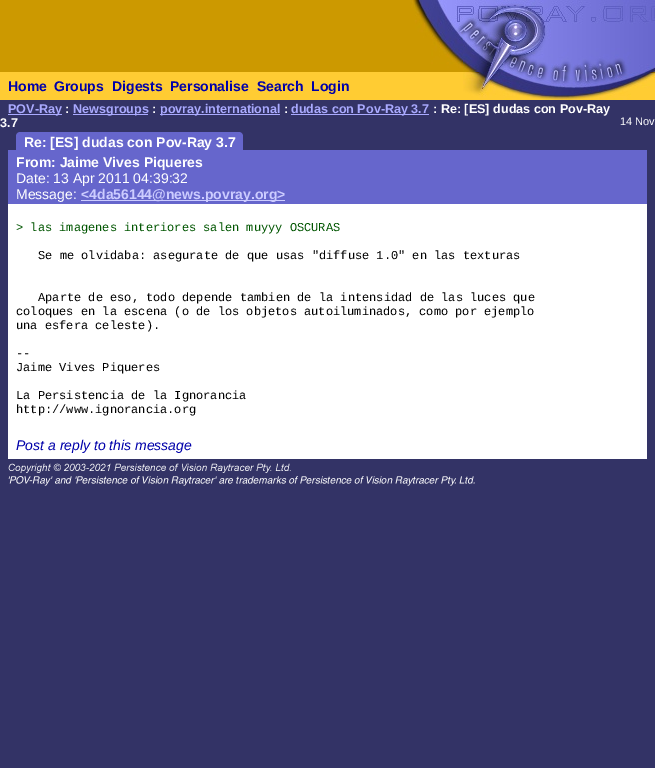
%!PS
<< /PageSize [655 768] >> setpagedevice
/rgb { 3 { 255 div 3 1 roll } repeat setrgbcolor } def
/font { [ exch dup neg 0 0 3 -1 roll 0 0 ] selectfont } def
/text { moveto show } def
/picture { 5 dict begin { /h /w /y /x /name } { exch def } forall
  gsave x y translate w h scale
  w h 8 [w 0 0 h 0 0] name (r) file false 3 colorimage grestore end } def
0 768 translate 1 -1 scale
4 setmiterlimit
51 51 102 rgb
0 0 655 768 rectfill
204 153 0 rgb
0 0 463 72 rectfill
(img_01.rgb) 410 0 53 68 picture
(img_02.rgb) 463 0 40 72 picture
(img_03.rgb) 503 0 152 72 picture
255 204 51 rgb
0 72 463 28 rectfill
463 98 40 2 rectfill
(img_04.rgb) 463 72 40 26 picture
(img_05.rgb) 503 72 152 28 picture
170 170 255 rgb
8 114 54 1 rectfill
73 114 75 1 rectfill
160 114 120 1 rectfill
291 114 138 1 rectfill
102 102 204 rgb
20 132 moveto 219 0 rlineto 2 0 4 2 4 4 rcurveto 0 14 rlineto -227 0 rlineto 0 -14 rlineto 0 -2 2 -4 4 -4 rcurveto closepath fill
8 150 639 4 rectfill
8 154 639 50 rectfill
204 204 255 rgb
81 200 204 1 rectfill
255 255 255 rgb
8 204 639 2 rectfill
8 206 639 253 rectfill
(img_06.rgb) 8 463 467 23 picture
/LiberationSans-Bold 14 font
0 0 170 rgb
(Home) 8 91 text
(Groups) 54 91 text
(Digests) 112 91 text
(Personalise) 170 91 text
(Search) 257 91 text
(Login) 311 91 text
/LiberationSans-Bold 12.6 font
170 170 255 rgb
(POV-Ray) 8 113 text
255 255 255 rgb
(:) 65 113 text
170 170 255 rgb
(Newsgroups) 73 113 text
255 255 255 rgb
(:) 152 113 text
170 170 255 rgb
(povray.international) 160 113 text
255 255 255 rgb
(:) 284 113 text
170 170 255 rgb
(dudas con Pov-Ray 3.7) 291 113 text
255 255 255 rgb
(: Re: [ES] dudas con Pov-Ray) 433 113 text
(3.7) 0 127 text
/LiberationSans-Regular 11 font
(14 Nov) 620 125 text
/LiberationSans-Bold 14 font
(Re: [ES] dudas con Pov-Ray 3.7) 24 147 text
(From: Jaime Vives Piqueres) 16 167 text
/LiberationSans-Regular 14 font
(Date: 13 Apr 2011 04:39:32) 16 183 text
(Message:) 16 199 text
/LiberationSans-Bold 14 font
204 204 255 rgb
(<4da56144@news.povray.org>) 81 199 text
/LiberationMono-Regular 12 font
0 85 0 rgb
(> las imagenes interiores salen muyyy OSCURAS) 16 231 text
0 0 0 rgb
(Se me olvidaba: asegurate de que usas "diffuse 1.0" en las texturas) 38 259 text
(Aparte de eso, todo depende tambien de la intensidad de las luces que) 38 301 text
(coloques en la escena \(o de los objetos autoiluminados, como por ejemplo) 16 315 text
(una esfera celeste\).) 16 329 text
(--) 16 357 text
(Jaime Vives Piqueres) 16 371 text
(La Persistencia de la Ignorancia) 16 399 text
(http://www.ignorancia.org) 16 413 text
/LiberationSans-Italic 14 font
0 0 170 rgb
(Post a reply to this message) 16 450 text
showpage
